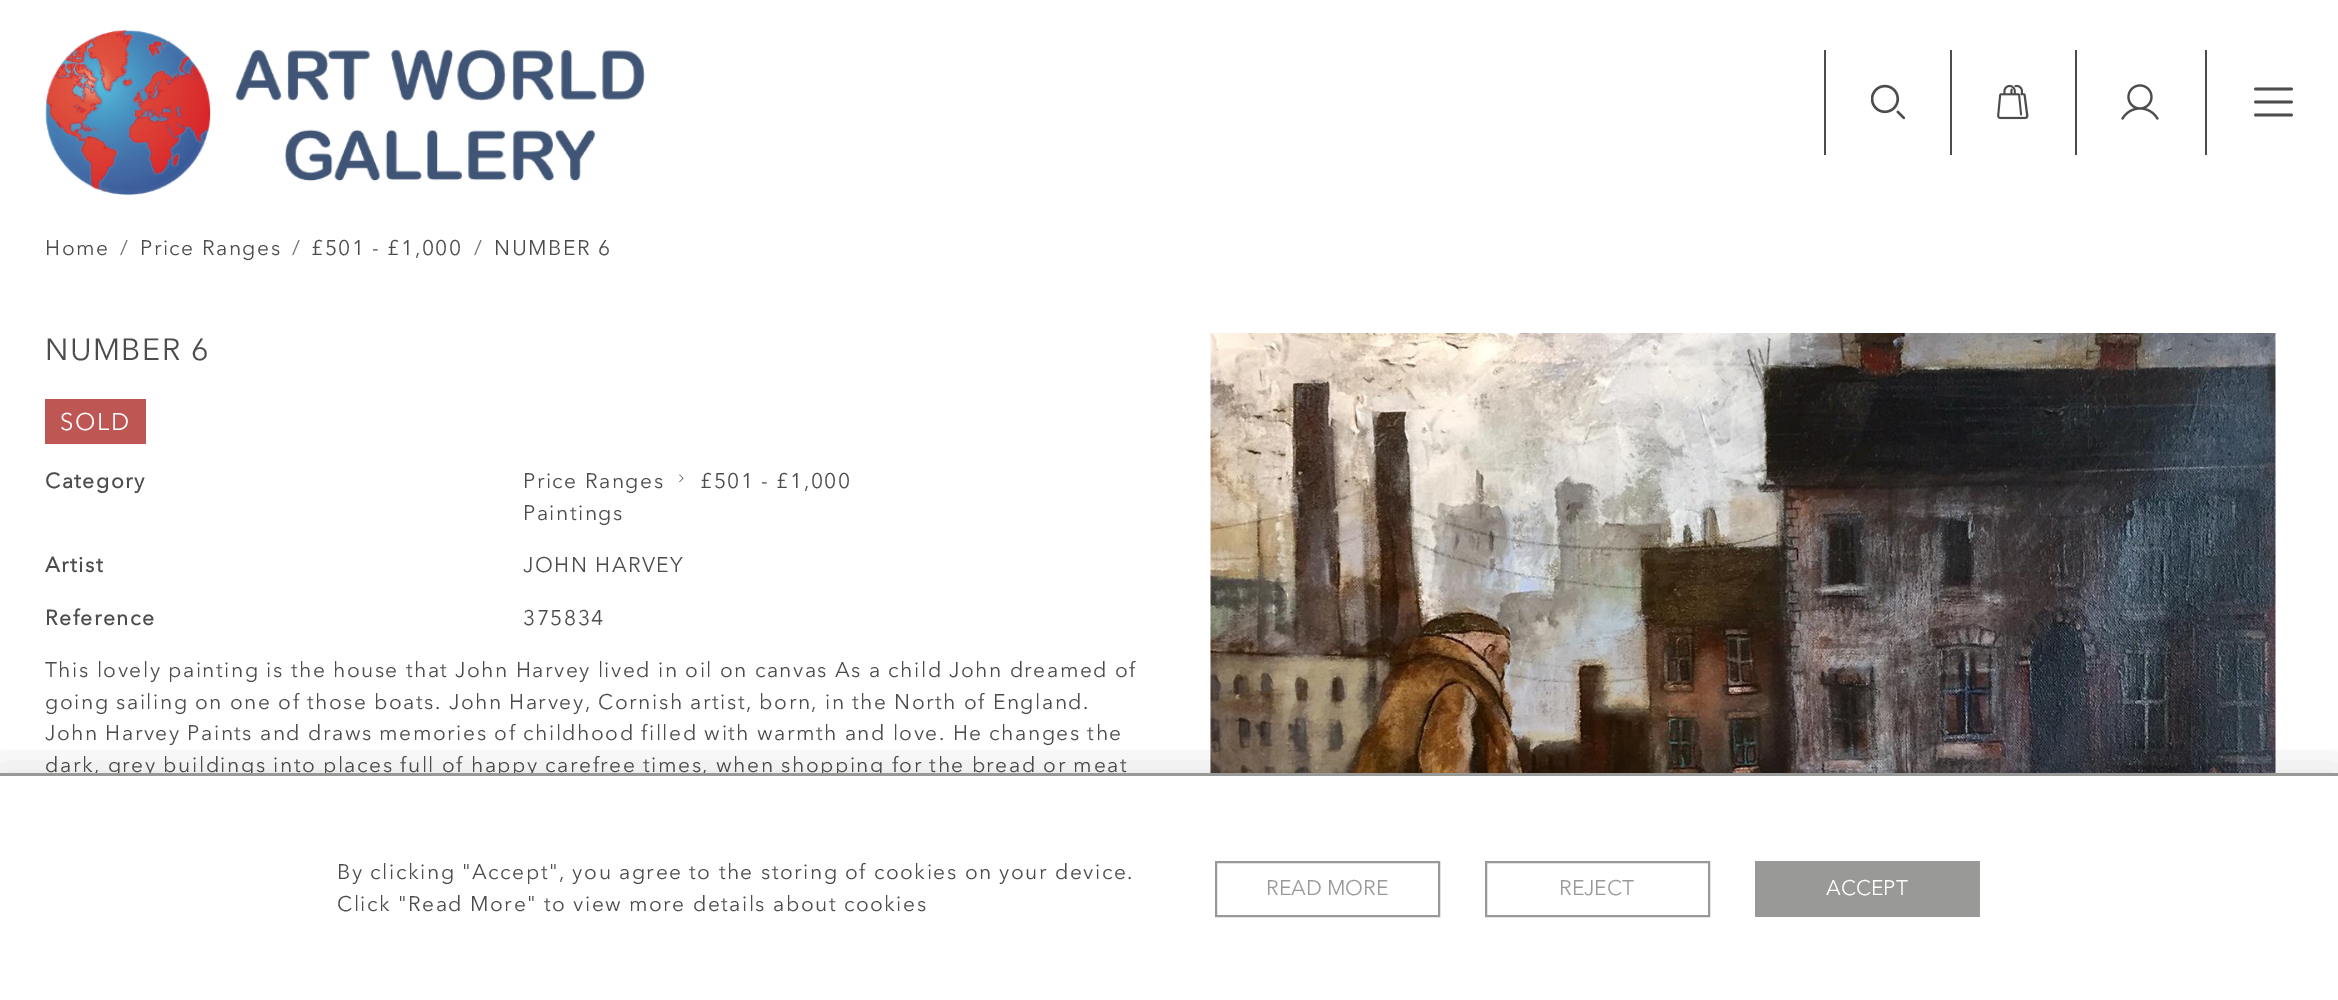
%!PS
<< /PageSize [2338 1000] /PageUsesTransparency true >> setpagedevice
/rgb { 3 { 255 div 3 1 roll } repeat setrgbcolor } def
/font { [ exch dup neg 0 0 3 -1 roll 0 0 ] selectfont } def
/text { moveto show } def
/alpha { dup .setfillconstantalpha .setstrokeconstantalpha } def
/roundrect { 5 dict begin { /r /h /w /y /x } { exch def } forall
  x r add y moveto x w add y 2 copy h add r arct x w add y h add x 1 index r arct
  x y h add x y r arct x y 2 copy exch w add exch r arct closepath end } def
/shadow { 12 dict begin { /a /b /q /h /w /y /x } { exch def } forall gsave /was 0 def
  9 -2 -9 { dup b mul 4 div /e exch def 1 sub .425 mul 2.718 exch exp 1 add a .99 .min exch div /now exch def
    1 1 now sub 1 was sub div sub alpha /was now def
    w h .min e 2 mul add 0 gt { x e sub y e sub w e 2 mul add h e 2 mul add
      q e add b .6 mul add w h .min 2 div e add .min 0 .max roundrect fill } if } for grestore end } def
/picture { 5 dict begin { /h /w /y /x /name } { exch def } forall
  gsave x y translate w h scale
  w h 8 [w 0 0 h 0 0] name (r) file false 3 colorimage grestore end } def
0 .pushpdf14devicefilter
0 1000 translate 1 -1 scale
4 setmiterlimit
255 255 255 rgb
0 0 2338 1000 rectfill
(img_01.rgb) 45 30 600 165 picture
76 76 75 rgb
1824 50 2 105 rectfill
(img_02.rgb) 1871 84 34 36 picture
1950 50 2 105 rectfill
(img_03.rgb) 1997 84 32 36 picture
2075 50 2 105 rectfill
(img_04.rgb) 2121 84 38 36 picture
2205 50 2 105 rectfill
2.7 setlinewidth
1 setlinecap
2255.5 89 moveto 36 0 rlineto 2255.5 102 moveto 36 0 rlineto 2255.5 115 moveto 36 0 rlineto stroke
190 87 84 rgb
45 399 101 45 rectfill
(img_05.rgb) 679 474 5 9 picture
(img_06.rgb) 1210 333 1066 440 picture
/AvenirNext-Regular 21 font
76 76 75 rgb
45 255 moveto 1.5 0 (Home) ashow
108 117 125 rgb
120 255 moveto 1.5 0 (/) ashow
76 76 75 rgb
140 255 moveto 1.5 0 (Price Ranges) ashow
108 117 125 rgb
292 255 moveto 1.5 0 (/) ashow
76 76 75 rgb
311 255 moveto 1.5 0 (£501 - £1,000) ashow
108 117 125 rgb
474 255 moveto 1.5 0 (/) ashow
76 76 75 rgb
494 255 moveto 1.5 0 (NUMBER 6) ashow
/AvenirNext-Regular 30.5 font
45 360 moveto 1.5 0 (NUMBER 6) ashow
/AvenirNext-Regular 24 font
255 255 255 rgb
60 430 moveto 1.5 0 (SOLD) ashow
/AvenirNext-Bold 21 font
76 76 75 rgb
45 488 moveto 1.5 0 (Category) ashow
/AvenirNext-Regular 21 font
523 488 moveto 1.5 0 (Price Ranges) ashow
700 488 moveto 1.5 0 (£501 - £1,000) ashow
523 520 moveto 1.5 0 (Paintings) ashow
/AvenirNext-Bold 21 font
45 572 moveto 1.5 0 (Artist) ashow
/AvenirNext-Regular 21 font
523 572 moveto 1.5 0 (JOHN HARVEY) ashow
/AvenirNext-Bold 21 font
45 625 moveto 1.5 0 (Reference) ashow
/AvenirNext-Regular 21 font
523 625 moveto 1.5 0 (375834) ashow
45 677 moveto 1.5 0 (This lovely painting is the house that John Harvey lived in oil on canvas As a child John dreamed of) ashow
45 709 moveto 1.5 0 (going sailing on one of those boats. John Harvey, Cornish artist, born, in the North of England.) ashow
45 740 moveto 1.5 0 (John Harvey Paints and draws memories of childhood filled with warmth and love. He changes the) ashow
45 772 moveto 1.5 0 (dark, grey buildings into places full of happy carefree times, when shopping for the bread or meat) ashow
255 255 255 rgb
110 776 770 2 rectfill
gsave
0 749 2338 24 rectclip
0 0 0 rgb
0 765 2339 228 0 19.5 0.1 shadow
grestore
153 153 152 rgb
0 773 2338 3 rectfill
76 76 75 rgb
337 879 moveto 1.5 0 (By clicking "Accept", you agree to the storing of cookies on your device.) ashow
337 911 moveto 1.5 0 (Click "Read More" to view more details about cookies) ashow
153 153 152 rgb
2 setlinewidth
0 setlinecap
1216 862 223 54 rectstroke
(READ MORE) 1266 895 text
1486 862 223 54 rectstroke
(REJECT) 1559 895 text
1755 861 225 56 rectfill
255 255 255 rgb
(ACCEPT) 1826 895 text
.poppdf14devicefilter showpage
